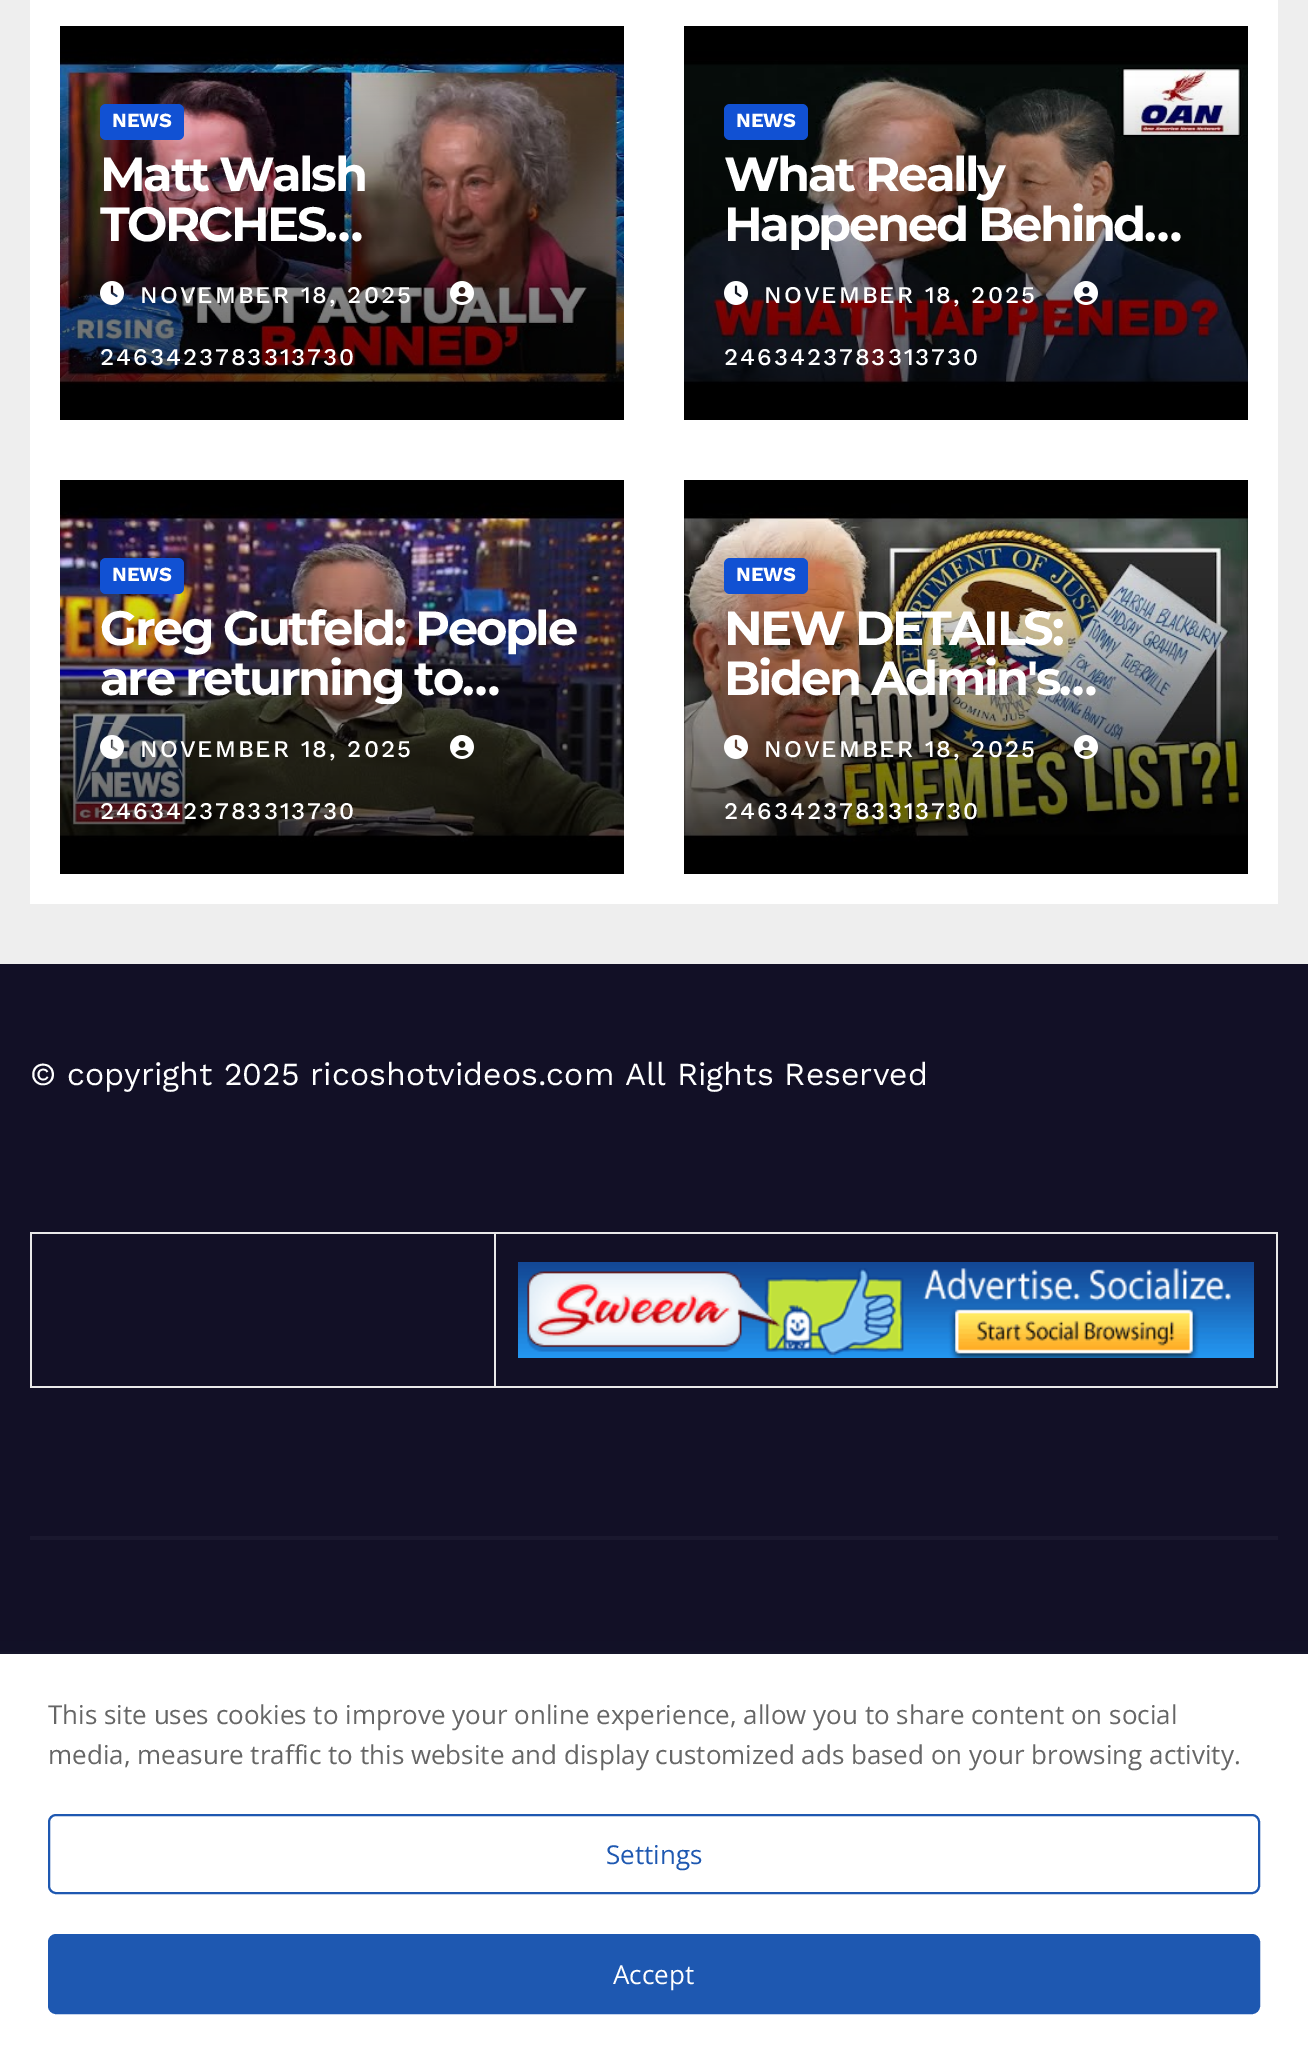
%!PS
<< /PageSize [1308 2054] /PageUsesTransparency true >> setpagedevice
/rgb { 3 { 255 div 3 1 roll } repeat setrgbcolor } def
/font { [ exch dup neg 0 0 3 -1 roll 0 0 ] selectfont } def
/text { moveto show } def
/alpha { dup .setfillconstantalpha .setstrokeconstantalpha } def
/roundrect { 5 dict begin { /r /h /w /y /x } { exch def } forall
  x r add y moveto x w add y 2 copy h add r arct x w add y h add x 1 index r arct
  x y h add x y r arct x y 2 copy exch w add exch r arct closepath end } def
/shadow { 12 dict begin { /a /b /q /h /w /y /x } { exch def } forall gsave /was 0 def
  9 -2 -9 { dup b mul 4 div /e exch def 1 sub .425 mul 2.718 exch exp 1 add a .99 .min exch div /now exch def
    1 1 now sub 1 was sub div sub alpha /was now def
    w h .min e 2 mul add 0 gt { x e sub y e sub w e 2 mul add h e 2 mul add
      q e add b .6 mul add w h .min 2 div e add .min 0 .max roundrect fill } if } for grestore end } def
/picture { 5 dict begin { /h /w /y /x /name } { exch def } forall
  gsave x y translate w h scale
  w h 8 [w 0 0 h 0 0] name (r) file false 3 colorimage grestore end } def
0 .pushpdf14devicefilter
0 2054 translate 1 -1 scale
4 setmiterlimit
238 238 238 rgb
0 0 1308 2054 rectfill
255 255 255 rgb
30 0 1248 904 rectfill
(img_01.rgb) 60 26 564 394 picture
17 81 211 rgb
100 104 84 36 6 roundrect fill
(img_02.rgb) 100 281 24 24 picture
(img_03.rgb) 450 281 24 24 picture
(img_04.rgb) 684 26 564 394 picture
724 104 84 36 6 roundrect fill
(img_05.rgb) 724 281 24 24 picture
(img_06.rgb) 1074 281 24 24 picture
(img_07.rgb) 60 480 564 394 picture
100 558 84 36 6 roundrect fill
(img_08.rgb) 100 735 24 24 picture
(img_09.rgb) 450 735 24 24 picture
(img_10.rgb) 684 480 564 394 picture
724 558 84 36 6 roundrect fill
(img_11.rgb) 724 735 24 24 picture
(img_12.rgb) 1074 735 24 24 picture
18 16 38 rgb
0 964 1308 688 rectfill
233 233 233 rgb
30 1232 1248 2 rectfill
1276 1232 2 156 rectfill
30 1386 1248 2 rectfill
30 1232 2 156 rectfill
494 1232 2 156 rectfill
(img_13.rgb) 518 1262 736 96 picture
26 24 46 rgb
30 1536 1248 4 rectfill
36 47 66 rgb
-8 1666 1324 376 0 20 0.31 shadow
21 21 42 rgb
2 setlinewidth
-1 1653 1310 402 rectstroke
255 255 255 rgb
0 1654 1308 400 rectfill
30 88 177 rgb
49 1815 1210 78 7 roundrect stroke
49 1935 1210 78 7 roundrect gsave fill grestore
stroke
/WorkSans-Bold 20 font
255 255 255 rgb
(NEWS) 112 127 text
/Montserrat-Bold 48 font
100 191 moveto -2.4 0 (Matt Walsh) ashow
100 241 moveto -2.4 0 (TORCHES…) ashow
/WorkSans-Medium 24 font
140 303 moveto 2 0 (NOVEMBER 18, 2025) ashow
100 365 moveto 2 0 (2463423783313730) ashow
/WorkSans-Bold 20 font
(NEWS) 736 127 text
/Montserrat-Bold 48 font
724 191 moveto -2.4 0 (What Really) ashow
gsave
724 150 484 100 rectclip
724 241 moveto -2.4 0 (Happened Behind…) ashow
grestore
/WorkSans-Medium 24 font
764 303 moveto 2 0 (NOVEMBER 18, 2025) ashow
724 365 moveto 2 0 (2463423783313730) ashow
/WorkSans-Bold 20 font
(NEWS) 112 581 text
/Montserrat-Bold 48 font
100 645 moveto -2.4 0 (Greg Gutfeld: People) ashow
gsave
100 604 484 100 rectclip
100 695 moveto -2.4 0 (are returning to…) ashow
grestore
/WorkSans-Medium 24 font
140 757 moveto 2 0 (NOVEMBER 18, 2025) ashow
100 819 moveto 2 0 (2463423783313730) ashow
/WorkSans-Bold 20 font
(NEWS) 736 581 text
/Montserrat-Bold 48 font
724 645 moveto -2.4 0 (NEW DETAILS:) ashow
724 695 moveto -2.4 0 (Biden Admin's…) ashow
/WorkSans-Medium 24 font
764 757 moveto 2 0 (NOVEMBER 18, 2025) ashow
724 819 moveto 2 0 (2463423783313730) ashow
/WorkSans-Regular 32 font
(© copyright 2025 ricoshotvideos.com All Rights Reserved) 30 1085 text
/OpenSans-Regular 26 font
102 102 102 rgb
(This site uses cookies to improve your online experience, allow you to share content on social) 48 1724 text
(media, measure traffic to this website and display customized ads based on your browsing activity.) 48 1764 text
30 88 177 rgb
(Settings) 606 1864 text
255 255 255 rgb
(Accept) 613 1984 text
.poppdf14devicefilter showpage
